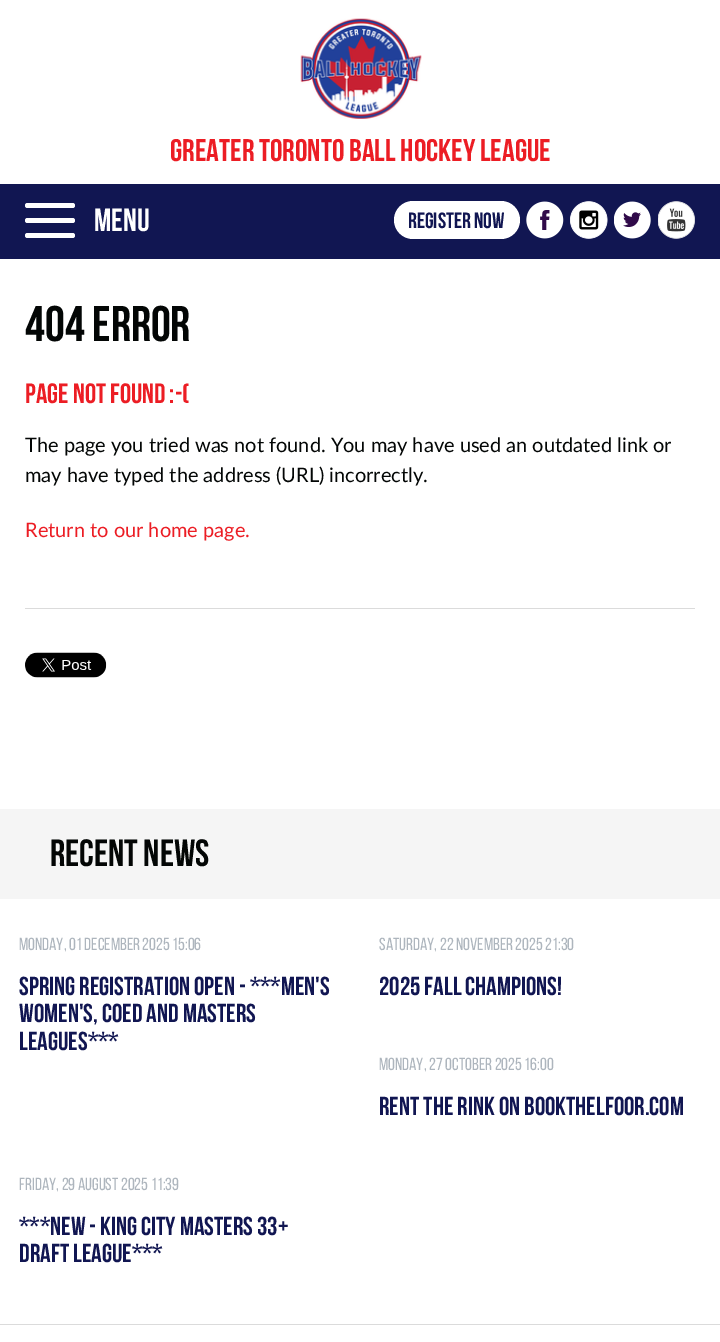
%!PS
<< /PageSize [720 1342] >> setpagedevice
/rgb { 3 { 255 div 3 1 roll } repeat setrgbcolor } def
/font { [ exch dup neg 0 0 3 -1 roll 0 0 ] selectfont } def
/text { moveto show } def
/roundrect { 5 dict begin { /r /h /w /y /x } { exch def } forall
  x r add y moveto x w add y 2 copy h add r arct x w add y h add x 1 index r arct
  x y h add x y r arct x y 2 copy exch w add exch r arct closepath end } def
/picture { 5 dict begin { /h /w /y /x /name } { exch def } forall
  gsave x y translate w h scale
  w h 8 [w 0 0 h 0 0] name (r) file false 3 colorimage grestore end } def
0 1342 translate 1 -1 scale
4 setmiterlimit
255 255 255 rgb
0 0 720 1342 rectfill
(img_01.rgb) 300 18 122 101 picture
17 22 82 rgb
0 184 720 75 rectfill
255 255 255 rgb
25 203 50 5 2.5 roundrect fill
25 218 50 5 2.5 roundrect fill
25 233 50 5 2.5 roundrect fill
394 201 126 38 19 roundrect fill
(img_02.rgb) 526 201 38 38 picture
(img_03.rgb) 570 201 38 38 picture
(img_04.rgb) 614 201 37 38 picture
(img_05.rgb) 658 201 37 38 picture
219 219 219 rgb
25 608 670 1 rectfill
(img_06.rgb) 25 652 82 26 picture
245 245 245 rgb
0 809 720 90 rectfill
219 219 219 rgb
0 1324 720 1 rectfill
/BebasNeue-Bold 31.25 font
236 29 36 rgb
(GREATER TORONTO BALL HOCKEY LEAGUE) 170 161 text
/BebasNeue-Bold 32 font
255 255 255 rgb
(Menu) 94 231 text
/BebasNeue-Bold 22 font
17 22 82 rgb
(Register now) 408 228 text
/BebasNeue-Bold 50 font
3 6 5 rgb
(404 error) 25 341 text
/BebasNeue-Bold 28 font
236 29 36 rgb
(Page not found :-\() 25 403 text
/Lato-Regular 20 font
3 6 5 rgb
(The page you tried was not found. You may have used an outdated link or) 25 452 text
(may have typed the address \(URL\) incorrectly.) 25 482 text
236 29 36 rgb
(Return to our home page.) 25 537 text
/BebasNeue-Bold 38 font
3 6 5 rgb
(Recent news) 50 866 text
/BebasNeue-Regular 17.5 font
173 181 189 rgb
(Monday, 01 December 2025 15:06) 19 950 text
/BebasNeue-Bold 26 font
17 22 82 rgb
(SPRING REGISTRATION OPEN - ***MEN'S) 19 995 text
(WOMEN'S, COED AND MASTERS) 19 1022 text
(LEAGUES***) 19 1050 text
/BebasNeue-Regular 17.5 font
173 181 189 rgb
(Saturday, 22 November 2025 21:30) 379 950 text
/BebasNeue-Bold 26 font
17 22 82 rgb
(2025 FALL CHAMPIONS!) 379 995 text
/BebasNeue-Regular 17.5 font
173 181 189 rgb
(Monday, 27 October 2025 16:00) 379 1070 text
/BebasNeue-Bold 26 font
17 22 82 rgb
(RENT THE RINK on BOOKTHELFOOR.COM) 379 1115 text
/BebasNeue-Regular 17.5 font
173 181 189 rgb
(Friday, 29 August 2025 11:39) 19 1190 text
/BebasNeue-Bold 26 font
17 22 82 rgb
(***NEW - KING CITY MASTERS 33+) 19 1235 text
(DRAFT LEAGUE***) 19 1262 text
showpage
